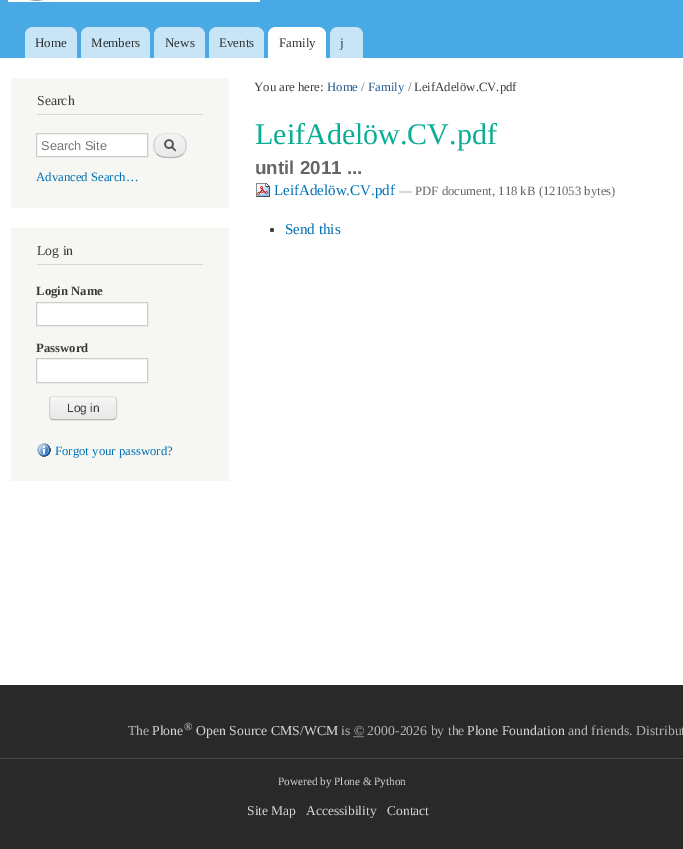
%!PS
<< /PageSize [683 849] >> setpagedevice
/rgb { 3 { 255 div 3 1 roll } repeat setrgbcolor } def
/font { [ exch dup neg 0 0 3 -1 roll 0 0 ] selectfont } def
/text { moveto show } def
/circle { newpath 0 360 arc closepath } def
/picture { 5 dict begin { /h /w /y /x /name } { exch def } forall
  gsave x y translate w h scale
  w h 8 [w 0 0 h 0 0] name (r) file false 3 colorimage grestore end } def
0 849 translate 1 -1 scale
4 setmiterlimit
255 255 255 rgb
0 0 683 849 rectfill
72 169 228 rgb
0 0 683 58 rectfill
(img_01.rgb) 8 0 252 2 picture
200 229 247 rgb
33 27 moveto 36 0 rlineto 4.5 0 8 3.5 8 8 rcurveto 0 23 rlineto -52 0 rlineto 0 -23 rlineto 0 -4.5 3.5 -8 8 -8 rcurveto closepath fill
89 27 moveto 53 0 rlineto 4.5 0 8 3.5 8 8 rcurveto 0 23 rlineto -69 0 rlineto 0 -23 rlineto 0 -4.5 3.5 -8 8 -8 rcurveto closepath fill
162 27 moveto 35 0 rlineto 4.5 0 8 3.5 8 8 rcurveto 0 23 rlineto -51 0 rlineto 0 -23 rlineto 0 -4.5 3.5 -8 8 -8 rcurveto closepath fill
217 27 moveto 39 0 rlineto 4.5 0 8 3.5 8 8 rcurveto 0 23 rlineto -55 0 rlineto 0 -23 rlineto 0 -4.5 3.5 -8 8 -8 rcurveto closepath fill
255 255 255 rgb
276 27 moveto 42 0 rlineto 4.5 0 8 3.5 8 8 rcurveto 0 23 rlineto -58 0 rlineto 0 -23 rlineto 0 -4.5 3.5 -8 8 -8 rcurveto closepath fill
200 229 247 rgb
338 27 moveto 17 0 rlineto 4.5 0 8 3.5 8 8 rcurveto 0 23 rlineto -33 0 rlineto 0 -23 rlineto 0 -4.5 3.5 -8 8 -8 rcurveto closepath fill
246 246 242 rgb
11 78 218 130 rectfill
214 214 214 rgb
37 114 166 1 rectfill
255 255 255 rgb
36.5 133.5 moveto 111 0 rlineto 0 23 rlineto -111 0 rlineto closepath gsave fill grestore
204 204 204 rgb
stroke
(img_02.rgb) 153 135 34 23 picture
228 228 228 rgb
157 137 moveto 3.5 -3.5 8 -3.5 13 -3.5 rcurveto 5 0 9.5 0 13 3.5 rcurveto stroke
210 210 210 rgb
183 137 moveto 4.5 4.5 4.5 12.5 0 17 rcurveto stroke
180 180 180 rgb
183 154 moveto -3.5 3.5 -8 3.5 -13 3.5 rcurveto -5 0 -9.5 0 -13 -3.5 rcurveto stroke
210 210 210 rgb
157 154 moveto -4.5 -4.5 -4.5 -12.5 0 -17 rcurveto stroke
246 246 242 rgb
11 228 218 253 rectfill
214 214 214 rgb
37 264 166 1 rectfill
255 255 255 rgb
36.5 302.5 moveto 111 0 rlineto 0 23 rlineto -111 0 rlineto closepath gsave fill grestore
204 204 204 rgb
stroke
255 255 255 rgb
36.5 358.5 moveto 111 0 rlineto 0 24 rlineto -111 0 rlineto closepath gsave fill grestore
204 204 204 rgb
stroke
(img_03.rgb) 49 401 68 19 picture
228 228 228 rgb
50.5 397.5 moveto 2 -1 rlineto 61 0 rlineto 2 1 rlineto stroke
210 210 210 rgb
115.5 397.5 moveto 0.5 0.5 1 1.5 1 2.5 rcurveto 0 16 rlineto 0 1 -0.5 2 -1 2.5 rcurveto stroke
180 180 180 rgb
115.5 418.5 moveto -2 1 rlineto -61 0 rlineto -2 -1 rlineto stroke
210 210 210 rgb
50.5 418.5 moveto -0.5 -0.5 -1 -1.5 -1 -2.5 rcurveto 0 -16 rlineto 0 -1 0.5 -2 1 -2.5 rcurveto stroke
(img_04.rgb) 37 443 14 14 picture
(img_05.rgb) 256 183 14 14 picture
59 59 59 rgb
272 230 2 circle fill
41 41 41 rgb
0 685 683 164 rectfill
73 73 73 rgb
0 758 683 1 rectfill
180 180 180 rgb
[1 1] 0 setdash
353.5 736.5 moveto 10.5 0 rlineto stroke
/LiberationSerif-Regular 13 font
51 51 51 rgb
(Home) 35 47 text
(Members) 91 47 text
(News) 165 47 text
(Events) 219 47 text
(Family) 279 47 text
(j) 340 47 text
/LiberationSerif-Regular 13.75 font
59 59 59 rgb
(Search) 37 105 text
/LiberationSans-Regular 12.75 font
117 117 117 rgb
(Search Site) 41 150 text
/LiberationSerif-Regular 12.75 font
0 113 179 rgb
(Advanced Search…) 36 181 text
/LiberationSerif-Regular 13.75 font
59 59 59 rgb
(Log in) 37 255 text
/LiberationSerif-Bold 12.75 font
(Login Name) 36 295 text
(Password) 36 352 text
/LiberationSans-Regular 12 font
(Log in) 67 412 text
/LiberationSerif-Regular 12.75 font
0 113 179 rgb
(Forgot your password?) 55 455 text
59 59 59 rgb
(You are here:) 254 91 text
32 92 144 rgb
(Home) 327 91 text
102 102 102 rgb
(/) 361 91 text
32 92 144 rgb
(Family) 368 91 text
102 102 102 rgb
(/) 408 91 text
59 59 59 rgb
(LeifAdelöw.CV.pdf) 414 91 text
/LiberationSerif-Regular 30 font
10 174 149 rgb
(LeifAdelöw.CV.pdf) 255 144 text
/LiberationSans-Bold 18.75 font
102 102 102 rgb
(until 2011 ...) 255 174 text
/LiberationSerif-Regular 15 font
0 113 179 rgb
(LeifAdelöw.CV.pdf) 274 195 text
/LiberationSerif-Regular 12.75 font
102 102 102 rgb
(— PDF document, 118 kB \(121053 bytes\)) 399 195 text
/LiberationSerif-Regular 15 font
0 113 179 rgb
(Send this) 285 234 text
/LiberationSerif-Regular 13.75 font
180 180 180 rgb
(The) 128 735 text
212 212 212 rgb
(Plone) 152 735 text
/LiberationSerif-Regular 11 font
(®) 184 730 text
/LiberationSerif-Regular 13.75 font
(Open Source CMS/WCM) 196 735 text
180 180 180 rgb
(is © 2000-2026 by the) 341 735 text
212 212 212 rgb
(Plone Foundation) 467 735 text
180 180 180 rgb
(and friends. Distribut) 568 735 text
/LiberationSerif-Regular 11.25 font
212 212 212 rgb
(Powered by Plone & Python) 278 785 text
/LiberationSerif-Regular 13.5 font
(Site Map) 247 815 text
(Accessibility) 306 815 text
(Contact) 387 815 text
showpage
